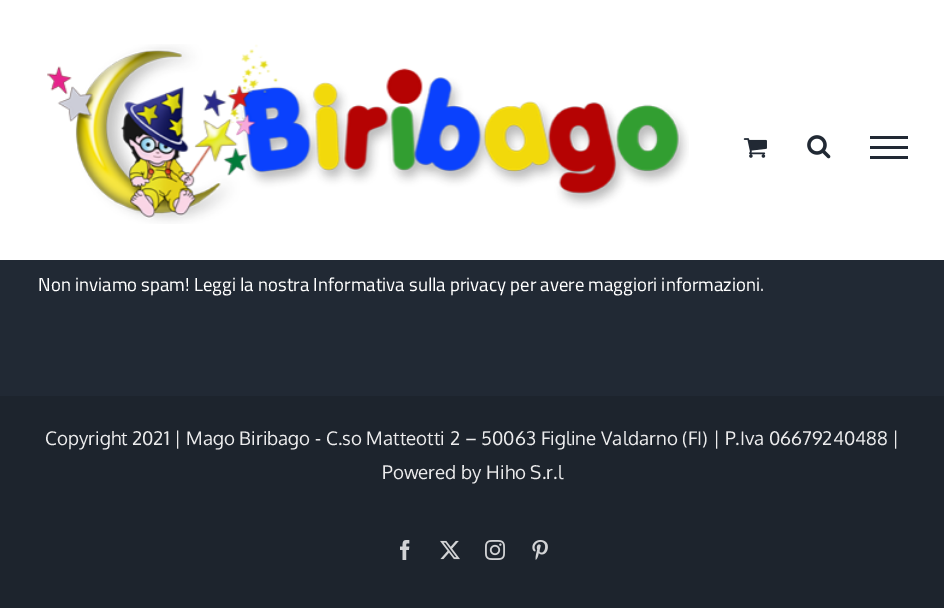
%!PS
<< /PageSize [944 608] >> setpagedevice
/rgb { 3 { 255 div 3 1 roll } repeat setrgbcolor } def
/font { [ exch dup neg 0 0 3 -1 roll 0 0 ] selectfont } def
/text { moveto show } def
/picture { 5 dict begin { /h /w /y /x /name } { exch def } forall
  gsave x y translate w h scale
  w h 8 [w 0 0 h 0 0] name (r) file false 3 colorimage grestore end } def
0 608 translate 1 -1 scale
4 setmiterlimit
33 41 52 rgb
0 0 944 608 rectfill
255 255 255 rgb
0 0 944 260 rectfill
(img_01.rgb) 47 44 642 180 picture
(img_02.rgb) 743 138 24 20 picture
(img_03.rgb) 807 135 24 24 picture
33 41 52 rgb
870 136 38 3 rectfill
870 146 38 3 rectfill
870 156 38 3 rectfill
29 36 45 rgb
0 396 944 212 rectfill
(img_04.rgb) 400 540 10 20 picture
(img_05.rgb) 440 540 20 20 picture
(img_06.rgb) 485 540 20 20 picture
(img_07.rgb) 532 540 16 20 picture
/Cairo-Regular 18.75 font
255 255 255 rgb
(Non inviamo spam! Leggi la nostra Informativa sulla privacy per avere maggiori informazioni.) 38 291 text
/Oxygen-Regular 18.75 font
235 235 236 rgb
(Copyright 2021 | Mago Biribago - C.so Matteotti 2 – 50063 Figline Valdarno \(FI\) | P.Iva 06679240488 |) 45 445 text
(Powered by Hiho S.r.l) 382 479 text
showpage
